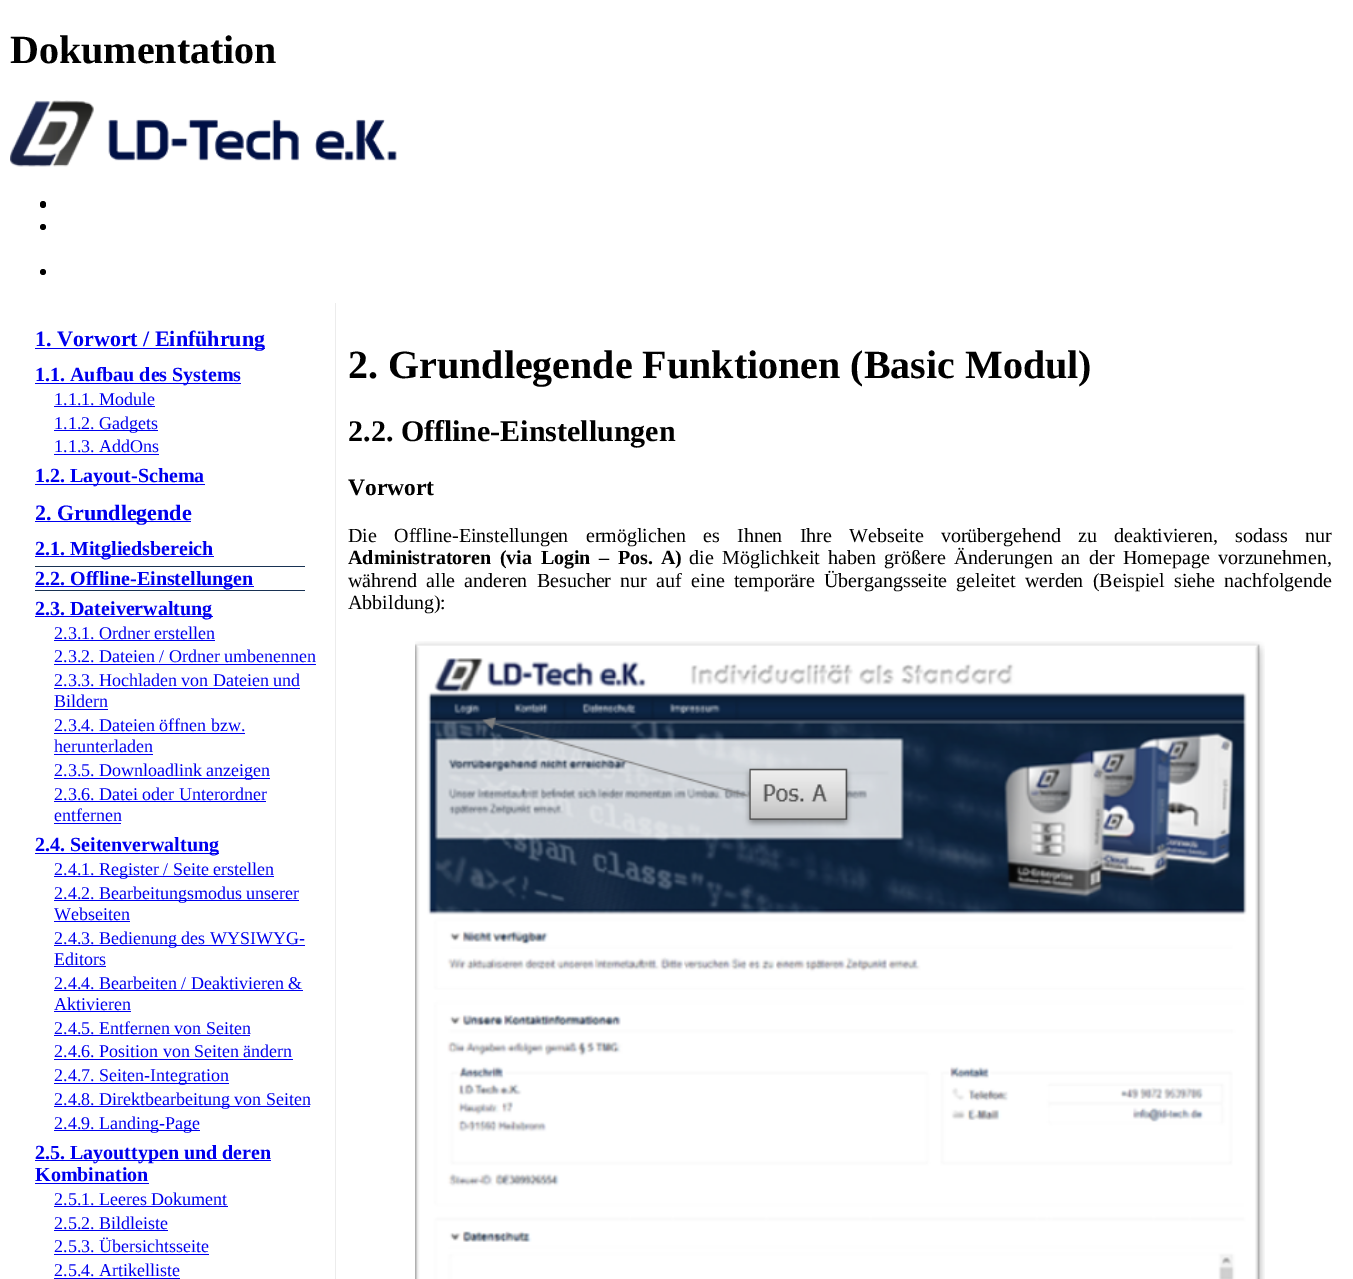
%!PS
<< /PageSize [1353 1279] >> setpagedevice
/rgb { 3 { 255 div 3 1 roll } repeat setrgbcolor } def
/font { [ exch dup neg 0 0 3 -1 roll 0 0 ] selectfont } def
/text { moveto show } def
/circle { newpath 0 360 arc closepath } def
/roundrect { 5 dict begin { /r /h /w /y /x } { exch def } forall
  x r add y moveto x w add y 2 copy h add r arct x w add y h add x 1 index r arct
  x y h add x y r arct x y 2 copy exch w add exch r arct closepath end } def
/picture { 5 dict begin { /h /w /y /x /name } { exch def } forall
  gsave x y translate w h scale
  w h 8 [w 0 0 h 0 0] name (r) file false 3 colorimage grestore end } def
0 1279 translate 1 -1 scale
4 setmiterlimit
255 255 255 rgb
0 0 1353 1279 rectfill
(img_01.rgb) 10 100 84 67 picture
(img_02.rgb) 108 119 289 42 picture
0 0 0 rgb
40 201 6 7 3 roundrect fill
43 227 3 circle fill
43 272 3 circle fill
236 236 236 rgb
335 303 1 976 rectfill
0 0 238 rgb
35 348 230 1 rectfill
35 383 206 1 rectfill
54 406 101 1 rectfill
54 430 104 1 rectfill
54 454 105 1 rectfill
35 484 170 1 rectfill
35 521 156 1 rectfill
35 556 179 1 rectfill
24 50 83 rgb
35 566 270 1 rectfill
35 590 270 1 rectfill
0 0 238 rgb
35 586 219 1 rectfill
35 616 178 1 rectfill
54 640 161 1 rectfill
54 664 262 1 rectfill
54 688 246 1 rectfill
54 709 54 1 rectfill
54 733 191 1 rectfill
54 754 99 1 rectfill
54 778 216 1 rectfill
54 801 212 1 rectfill
54 823 67 1 rectfill
35 853 184 1 rectfill
54 876 220 1 rectfill
54 900 245 1 rectfill
54 921 76 1 rectfill
54 945 251 1 rectfill
54 966 52 1 rectfill
54 990 249 1 rectfill
54 1011 77 1 rectfill
54 1035 196 1 rectfill
54 1059 239 1 rectfill
54 1083 175 1 rectfill
54 1106 256 1 rectfill
54 1130 146 1 rectfill
35 1160 236 1 rectfill
35 1183 114 1 rectfill
54 1206 174 1 rectfill
54 1230 114 1 rectfill
54 1254 155 1 rectfill
54 1278 126 1 rectfill
(img_03.rgb) 415 641 850 638 picture
/LiberationSerif-Bold 40 font
0 0 0 rgb
(Dokumentation) 10 63 text
/LiberationSerif-Bold 22 font
0 0 238 rgb
(1. Vorwort / Einführung) 35 346 text
/LiberationSerif-Bold 20 font
(1.1. Aufbau des Systems) 35 381 text
/LiberationSerif-Regular 18 font
(1.1.1. Module) 54 405 text
(1.1.2. Gadgets) 54 429 text
(1.1.3. AddOns) 54 452 text
/LiberationSerif-Bold 20 font
(1.2. Layout-Schema) 35 482 text
/LiberationSerif-Bold 22 font
(2. Grundlegende) 35 520 text
/LiberationSerif-Bold 20 font
(2.1. Mitgliedsbereich) 35 555 text
(2.2. Offline-Einstellungen) 35 585 text
(2.3. Dateiverwaltung) 35 615 text
/LiberationSerif-Regular 18 font
(2.3.1. Ordner erstellen) 54 639 text
(2.3.2. Dateien / Ordner umbenennen) 54 662 text
(2.3.3. Hochladen von Dateien und) 54 686 text
(Bildern) 54 707 text
(2.3.4. Dateien öffnen bzw.) 54 731 text
(herunterladen) 54 752 text
(2.3.5. Downloadlink anzeigen) 54 776 text
(2.3.6. Datei oder Unterordner) 54 800 text
(entfernen) 54 821 text
/LiberationSerif-Bold 20 font
(2.4. Seitenverwaltung) 35 851 text
/LiberationSerif-Regular 18 font
(2.4.1. Register / Seite erstellen) 54 875 text
(2.4.2. Bearbeitungsmodus unserer) 54 899 text
(Webseiten) 54 920 text
(2.4.3. Bedienung des WYSIWYG-) 54 944 text
(Editors) 54 965 text
(2.4.4. Bearbeiten / Deaktivieren &) 54 989 text
(Aktivieren) 54 1010 text
(2.4.5. Entfernen von Seiten) 54 1034 text
(2.4.6. Position von Seiten ändern) 54 1057 text
(2.4.7. Seiten-Integration) 54 1081 text
(2.4.8. Direktbearbeitung von Seiten) 54 1105 text
(2.4.9. Landing-Page) 54 1129 text
/LiberationSerif-Bold 20 font
(2.5. Layouttypen und deren) 35 1159 text
(Kombination) 35 1181 text
/LiberationSerif-Regular 18 font
(2.5.1. Leeres Dokument) 54 1205 text
(2.5.2. Bildleiste) 54 1229 text
(2.5.3. Übersichtsseite) 54 1252 text
(2.5.4. Artikelliste) 54 1276 text
/LiberationSerif-Bold 40 font
0 0 0 rgb
(2. Grundlegende Funktionen \(Basic Modul\)) 348 378 text
/LiberationSerif-Bold 30 font
(2.2. Offline-Einstellungen) 348 441 text
/LiberationSerif-Bold 23.5 font
(Vorwort) 348 495 text
/LiberationSerif-Regular 20 font
348 542 moveto 12.25 0 32 (Die Offline-Einstellungen ermöglichen es Ihnen Ihre Webseite vorübergehend zu deaktivieren, sodass nur) widthshow
/LiberationSerif-Bold 20 font
348 564 moveto 3.5 0 32 (Administratoren \(via Login – Pos. A\)) widthshow
/LiberationSerif-Regular 20 font
689 564 moveto 3.5 0 32 (die Möglichkeit haben größere Änderungen an der Homepage vorzunehmen,) widthshow
348 587 moveto 4.25 0 32 (während alle anderen Besucher nur auf eine temporäre Übergangsseite geleitet werden \(Beispiel siehe nachfolgende) widthshow
(Abbildung\):) 348 609 text
showpage
